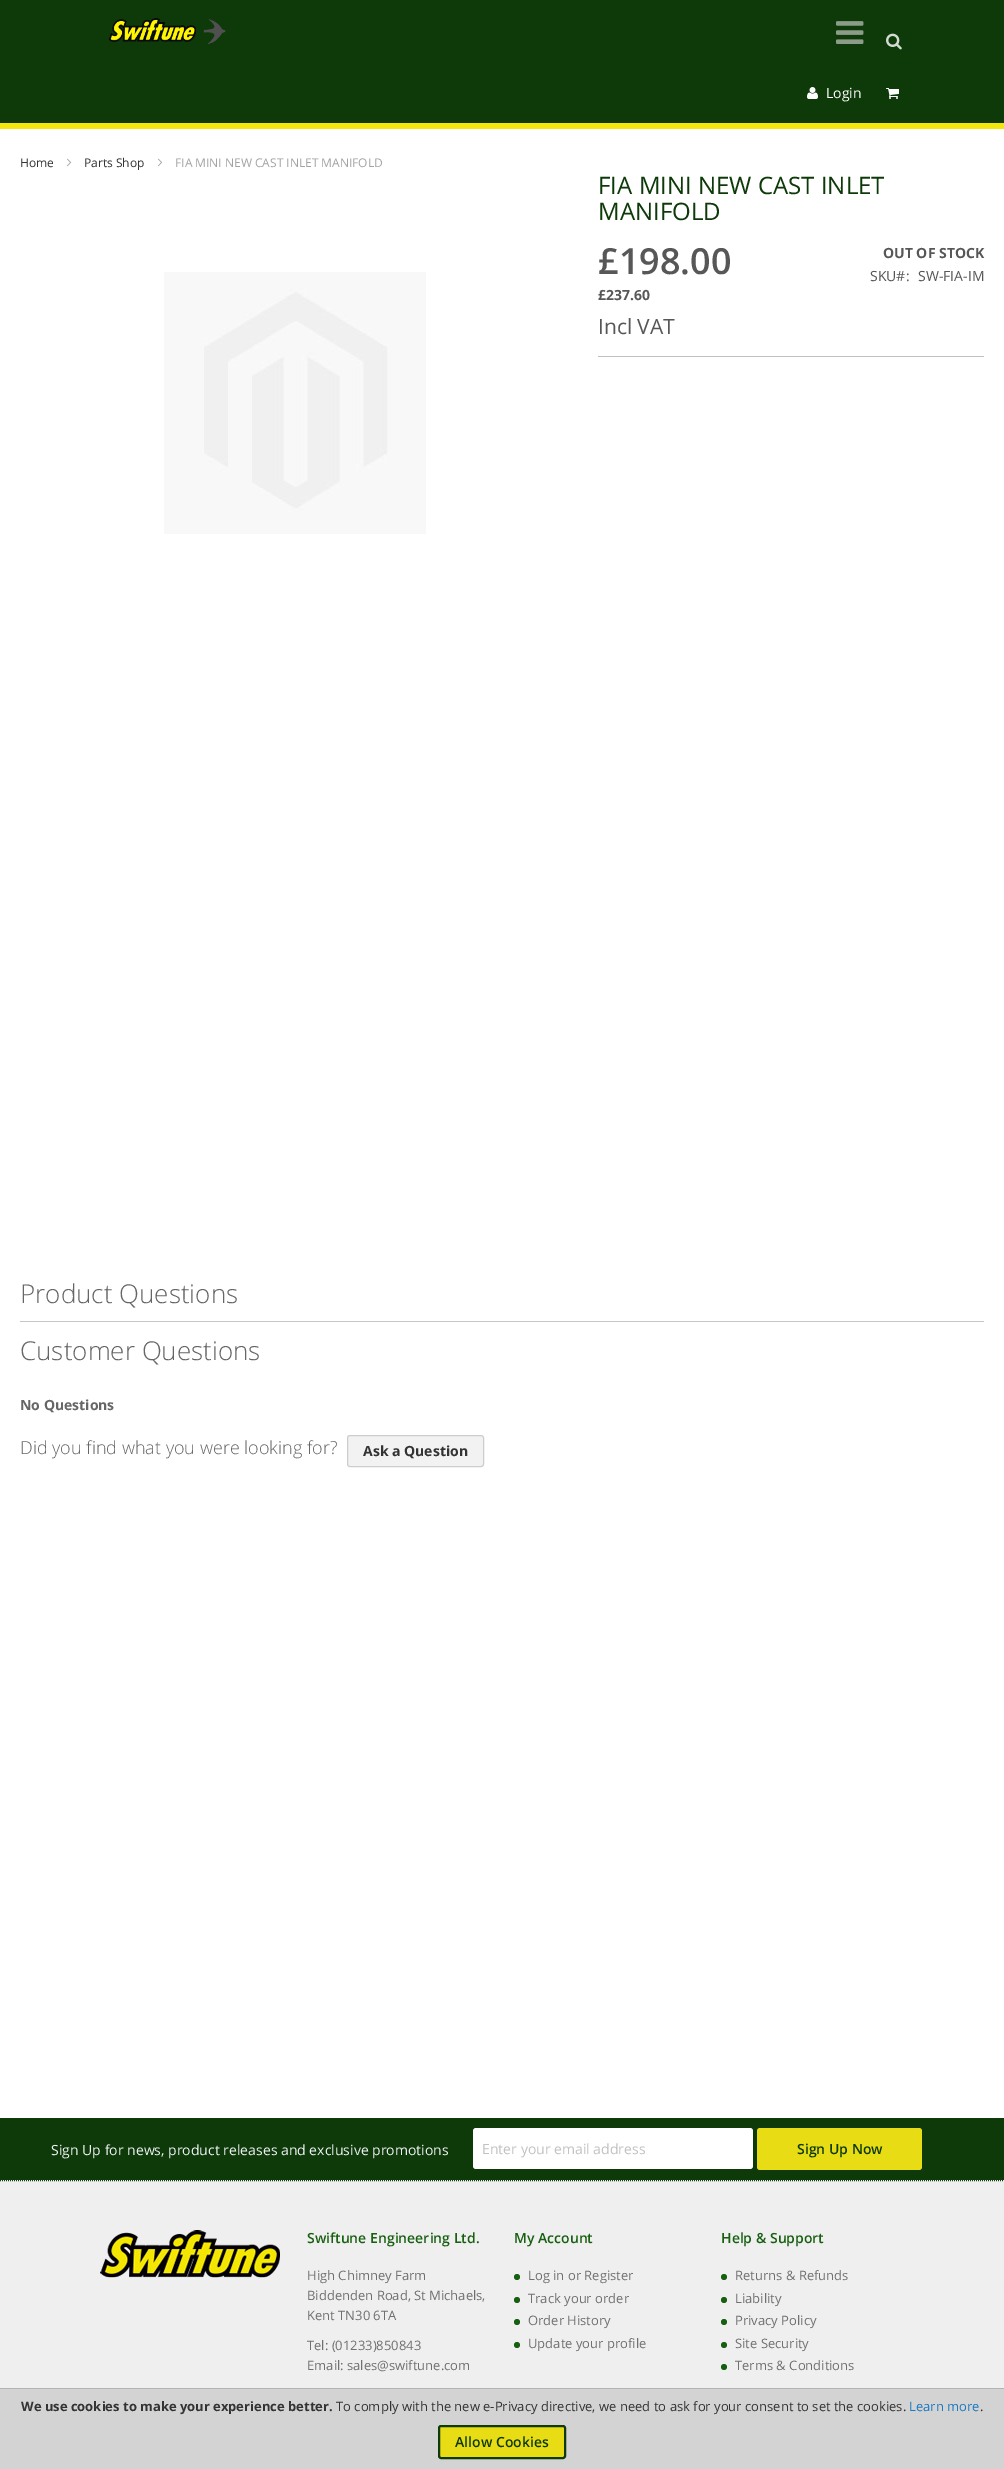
%!PS
<< /PageSize [1004 2469] >> setpagedevice
/rgb { 3 { 255 div 3 1 roll } repeat setrgbcolor } def
/font { [ exch dup neg 0 0 3 -1 roll 0 0 ] selectfont } def
/text { moveto show } def
/circle { newpath 0 360 arc closepath } def
/roundrect { 5 dict begin { /r /h /w /y /x } { exch def } forall
  x r add y moveto x w add y 2 copy h add r arct x w add y h add x 1 index r arct
  x y h add x y r arct x y 2 copy exch w add exch r arct closepath end } def
/picture { 5 dict begin { /h /w /y /x /name } { exch def } forall
  gsave x y translate w h scale
  w h 8 [w 0 0 h 0 0] name (r) file false 3 colorimage grestore end } def
0 2469 translate 1 -1 scale
4 setmiterlimit
255 255 255 rgb
0 0 1004 2469 rectfill
14 58 10 rgb
0 0 1004 123 rectfill
(img_01.rgb) 108 18 118 26 picture
(img_02.rgb) 836 21 28 23 picture
(img_03.rgb) 886 33 16 17 picture
242 230 14 rgb
0 123 1004 6 rectfill
(img_04.rgb) 807 87 11 12 picture
(img_05.rgb) 886 88 13 11 picture
(img_06.rgb) 66 158 6 9 picture
(img_06.rgb) 157 158 6 9 picture
193 193 193 rgb
598 356 386 1 rectfill
(img_07.rgb) 164 272 262 262 picture
198 198 198 rgb
20 1321 964 1 rectfill
242 242 242 rgb
347.5 1435.5 136 31 2.5 roundrect gsave fill grestore
205 205 205 rgb
stroke
14 58 10 rgb
0 2118 1004 62 rectfill
255 255 255 rgb
473 2128 280 41 3 roundrect fill
232 221 20 rgb
757 2128 165 42 3 roundrect fill
239 239 239 rgb
0 2180 1004 208 rectfill
14 58 10 rgb
[1 1] 0 setdash
0 2180.5 moveto 1004 0 rlineto stroke
(img_08.rgb) 100 2230 180 48 picture
24 96 17 rgb
517 2277 3 circle fill
517 2300 3 circle fill
517 2322 3 circle fill
517 2345 3 circle fill
724 2277 3 circle fill
724 2300 3 circle fill
724 2322 3 circle fill
724 2345 3 circle fill
724 2367 3 circle fill
211 211 211 rgb
0 2389 1004 80 rectfill
179 179 179 rgb
0 2388 1004 1 rectfill
232 221 20 rgb
439 2426 126 32 2 roundrect gsave fill grestore
14 58 10 rgb
2 setlinewidth
[] 0 setdash
stroke
/OpenSans-Regular 14 font
255 255 255 rgb
(Login) 826 98 text
/OpenSans-Regular 12 font
51 51 51 rgb
(Home) 20 167 text
(Parts Shop) 84 167 text
163 163 163 rgb
(FIA MINI NEW CAST INLET MANIFOLD) 175 167 text
/OpenSans-Regular 24 font
14 58 10 rgb
(FIA MINI NEW CAST INLET) 598 194 text
(MANIFOLD) 598 220 text
/OpenSans-SemiBold 36 font
87 87 87 rgb
(£198.00) 598 274 text
/OpenSans-Bold 14 font
(£237.60) 598 300 text
/OpenSans-Regular 21 font
(Incl VAT) 598 334 text
/OpenSans-Bold 14 font
(OUT OF STOCK) 883 258 text
/OpenSans-Regular 14 font
(SKU#:) 870 281 text
(SW-FIA-IM) 918 281 text
/OpenSans-Light 26 font
102 102 102 rgb
(Product Questions) 20 1303 text
(Customer Questions) 20 1360 text
/OpenSans-Bold 14 font
(No Questions) 20 1410 text
/OpenSans-Light 18 font
(Did you find what you were looking for?) 20 1454 text
/OpenSans-Bold 14 font
51 51 51 rgb
(Ask a Question) 363 1456 text
/OpenSans-Regular 14 font
236 240 241 rgb
(Sign Up for news, product releases and exclusive promotions) 51 2155 text
194 194 194 rgb
(Enter your email address) 482 2154 text
/OpenSans-SemiBold 14 font
14 58 10 rgb
(Sign Up Now) 797 2154 text
24 96 17 rgb
(Swiftune Engineering Ltd.) 307 2243 text
/OpenSans-Regular 13 font
112 112 112 rgb
(High Chimney Farm) 307 2280 text
(Biddenden Road, St Michaels,) 307 2300 text
(Kent TN30 6TA) 307 2320 text
(Tel: \(01233\)850843) 307 2350 text
(Email: sales@swiftune.com) 307 2370 text
/OpenSans-SemiBold 14 font
24 96 17 rgb
(My Account) 514 2243 text
/OpenSans-Regular 13 font
112 112 112 rgb
(Log in or Register) 528 2280 text
(Track your order) 528 2303 text
(Order History) 528 2325 text
(Update your profile) 528 2348 text
/OpenSans-SemiBold 14 font
24 96 17 rgb
(Help & Support) 721 2243 text
/OpenSans-Regular 13 font
112 112 112 rgb
(Returns & Refunds) 735 2280 text
(Liability) 735 2303 text
(Privacy Policy) 735 2325 text
(Site Security) 735 2348 text
(Terms & Conditions) 735 2370 text
/OpenSans-Bold 13 font
51 51 51 rgb
(We use cookies to make your experience better.) 21 2411 text
/OpenSans-Regular 13 font
(To comply with the new e-Privacy directive, we need to ask for your consent to set the cookies.) 336 2411 text
25 121 195 rgb
(Learn more) 909 2411 text
51 51 51 rgb
(.) 980 2411 text
/OpenSans-SemiBold 14 font
14 58 10 rgb
(Allow Cookies) 455 2447 text
showpage
